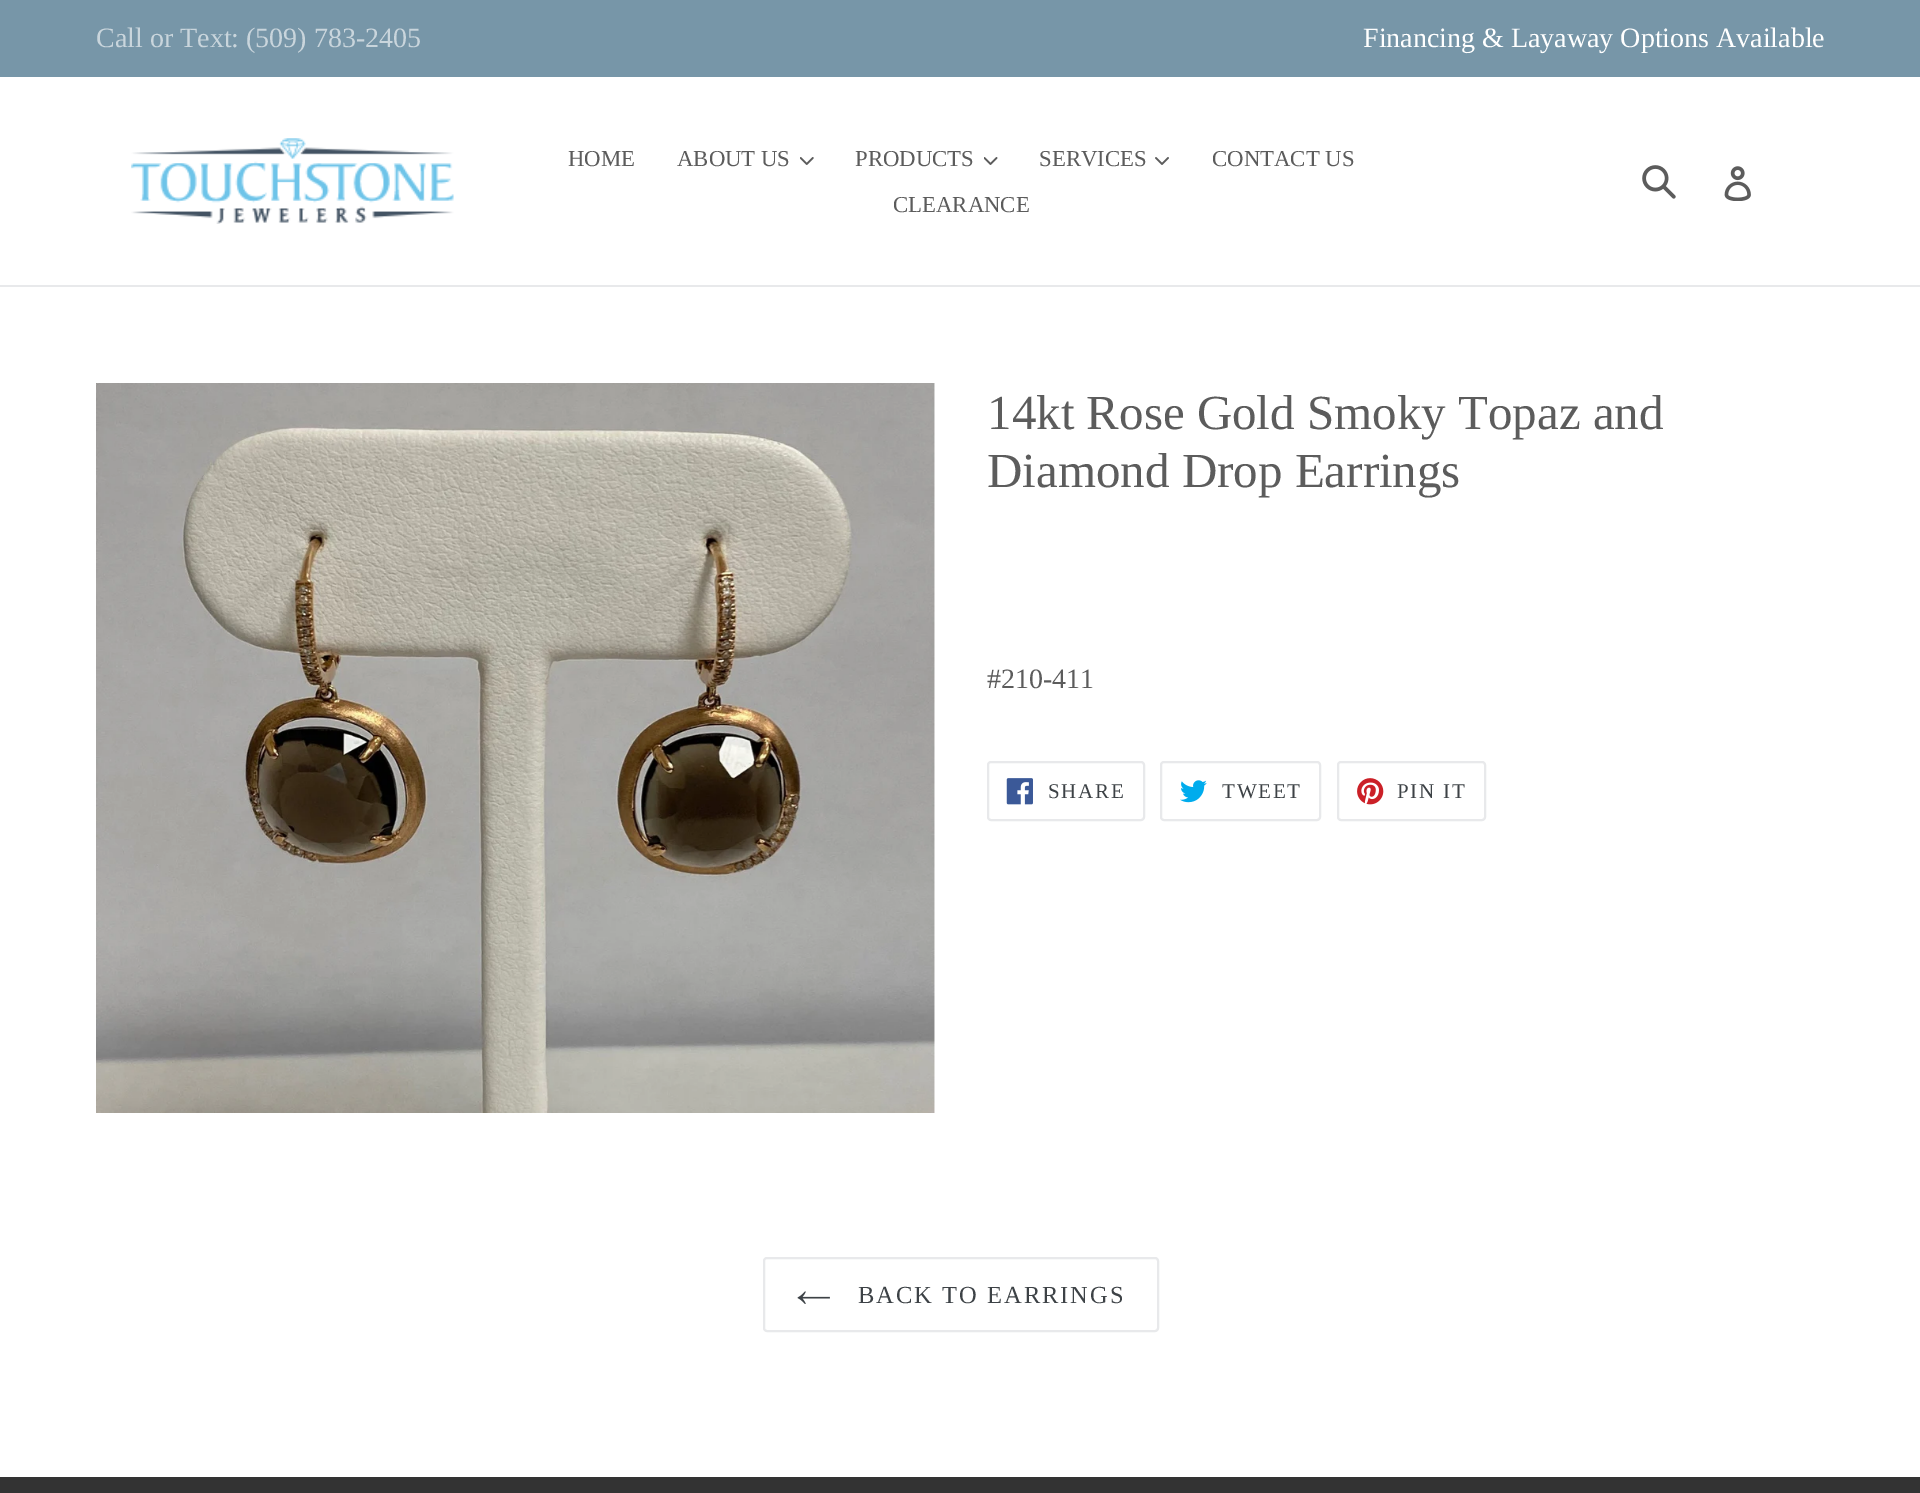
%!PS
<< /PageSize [1920 1493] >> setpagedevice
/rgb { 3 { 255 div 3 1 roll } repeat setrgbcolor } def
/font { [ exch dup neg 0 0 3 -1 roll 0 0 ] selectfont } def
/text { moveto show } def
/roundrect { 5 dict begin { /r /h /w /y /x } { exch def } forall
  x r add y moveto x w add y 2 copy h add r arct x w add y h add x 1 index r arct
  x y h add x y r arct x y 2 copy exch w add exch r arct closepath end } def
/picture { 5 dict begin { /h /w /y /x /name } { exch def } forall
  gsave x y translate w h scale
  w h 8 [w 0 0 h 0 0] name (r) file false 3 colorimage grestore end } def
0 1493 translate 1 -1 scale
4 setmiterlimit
255 255 255 rgb
0 0 1920 1493 rectfill
119 150 168 rgb
0 0 1920 77 rectfill
232 233 235 rgb
0 285 1920 2 rectfill
(img_01.rgb) 131 138 323 86 picture
(img_02.rgb) 800 157 14 8 picture
(img_03.rgb) 984 157 14 8 picture
(img_04.rgb) 1155 157 14 8 picture
(img_05.rgb) 1642 165 34 34 picture
(img_06.rgb) 1724 166 27 35 picture
(img_07.rgb) 96 383 839 730 picture
2 setlinewidth
988 762 156 58 3 roundrect stroke
(img_08.rgb) 1006 778 27 27 picture
1161 762 159 58 3 roundrect stroke
(img_09.rgb) 1180 780 27 23 picture
1338 762 147 58 3 roundrect stroke
(img_10.rgb) 1357 778 27 27 picture
764 1258 394 73 3 roundrect stroke
(img_11.rgb) 797 1291 33 13 picture
51 51 51 rgb
0 1477 1920 16 rectfill
/LiberationSerif-Regular 28 font
201 213 220 rgb
(Call or Text: \(509\) 783-2405) 96 47 text
255 255 255 rgb
(Financing & Layaway Options Available) 1363 47 text
/LiberationSerif-Regular 22.75 font
92 92 92 rgb
(HOME) 568 166 text
(ABOUT US) 677 166 text
(PRODUCTS) 855 166 text
(SERVICES) 1039 166 text
(CONTACT US) 1212 166 text
(CLEARANCE) 893 212 text
/LiberationSerif-Regular 49 font
(14kt Rose Gold Smoky Topaz and) 987 429 text
(Diamond Drop Earrings) 987 487 text
/LiberationSerif-Regular 28 font
(#210-411) 987 688 text
/LiberationSerif-Regular 21 font
61 66 70 rgb
1048 798 moveto 1.75 0 (SHARE) ashow
1222 798 moveto 1.75 0 (TWEET) ashow
1397 798 moveto 1.75 0 (PIN IT) ashow
/LiberationSerif-Regular 24.5 font
858 1303 moveto 2 0 (BACK TO EARRINGS) ashow
showpage
